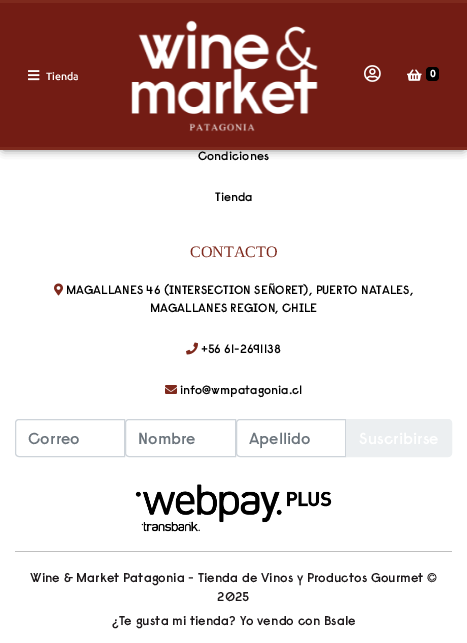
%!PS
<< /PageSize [467 643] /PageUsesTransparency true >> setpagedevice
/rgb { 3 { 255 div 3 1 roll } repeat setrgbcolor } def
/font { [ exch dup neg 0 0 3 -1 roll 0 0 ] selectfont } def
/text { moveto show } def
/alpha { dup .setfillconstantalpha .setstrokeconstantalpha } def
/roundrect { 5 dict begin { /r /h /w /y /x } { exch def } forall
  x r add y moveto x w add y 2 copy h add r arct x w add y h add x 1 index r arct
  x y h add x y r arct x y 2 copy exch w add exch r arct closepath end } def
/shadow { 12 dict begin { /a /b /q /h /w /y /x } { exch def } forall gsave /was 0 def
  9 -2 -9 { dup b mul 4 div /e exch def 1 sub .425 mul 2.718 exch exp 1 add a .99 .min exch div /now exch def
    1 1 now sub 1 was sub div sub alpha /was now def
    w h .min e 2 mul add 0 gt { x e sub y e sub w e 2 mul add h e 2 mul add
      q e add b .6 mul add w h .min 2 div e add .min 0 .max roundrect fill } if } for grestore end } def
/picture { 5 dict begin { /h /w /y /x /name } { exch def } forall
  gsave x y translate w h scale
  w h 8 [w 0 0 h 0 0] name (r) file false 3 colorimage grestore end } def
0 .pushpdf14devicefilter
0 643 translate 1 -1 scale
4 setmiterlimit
255 255 255 rgb
0 0 467 643 rectfill
0 0 0 rgb
4 6 459 142 0 5 0.75 shadow
115 28 20 rgb
0 3 467 144 rectfill
126 41 29 rgb
0 0 467 3 rectfill
0 147 467 3 rectfill
(img_01.rgb) 28 70 12 11 picture
(img_02.rgb) 131 20 187 112 picture
(img_03.rgb) 364 65 17 17 picture
(img_04.rgb) 407 69 15 12 picture
0 0 0 rgb
426 67 13 14 4 roundrect fill
(img_05.rgb) 54 283 9 13 picture
(img_06.rgb) 186 342 12 13 picture
(img_07.rgb) 165 385 12 9 picture
206 212 218 rgb
19 419.5 moveto 105.5 0 rlineto 0 37 rlineto -105.5 0 rlineto -2 0 -3.5 -1.5 -3.5 -3.5 rcurveto 0 -30 rlineto 0 -2 1.5 -3.5 3.5 -3.5 rcurveto closepath stroke
129 419.5 moveto 106.5 0 rlineto 0 37 rlineto -106.5 0 rlineto -2 0 -3.5 -1.5 -3.5 -3.5 rcurveto 0 -30 rlineto 0 -2 1.5 -3.5 3.5 -3.5 rcurveto closepath stroke
240 419.5 moveto 105.5 0 rlineto 0 37 rlineto -105.5 0 rlineto -2 0 -3.5 -1.5 -3.5 -3.5 rcurveto 0 -30 rlineto 0 -2 1.5 -3.5 3.5 -3.5 rcurveto closepath stroke
236 239 241 rgb
346.5 419.5 moveto 101.5 0 rlineto 2 0 3.5 1.5 3.5 3.5 rcurveto 0 30 rlineto 0 2 -1.5 3.5 -3.5 3.5 rcurveto -101.5 0 rlineto closepath gsave fill grestore
stroke
(img_08.rgb) 135 484 197 48 picture
191 191 191 rgb
15 551 437 1 rectfill
/Ubuntu-Medium 10.5 font
255 255 255 rgb
(Tienda) 46 80 text
/Ubuntu-Bold 10 font
(0) 430 77 text
/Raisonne-SemiBold 12 font
0 0 0 rgb
(Condiciones) 198 160 text
(Tienda) 215 201 text
/LiberationSerif-Regular 16 font
126 41 29 rgb
(CONTACTO) 190 257 text
/Raisonne-SemiBold 12 font
0 0 0 rgb
(MAGALLANES 46 \(INTERSECTION SEÑORET\), PUERTO NATALES,) 66 294 text
(MAGALLANES REGION, CHILE) 150 312 text
(+56 61-2691138) 201 353 text
(info@wmpatagonia.cl) 180 394 text
/Raisonne-SemiBold 16 font
108 117 125 rgb
(Correo) 28 444 text
(Nombre) 138 444 text
(Apellido) 249 444 text
255 255 255 rgb
(Suscribirse) 359 444 text
/Raisonne-SemiBold 12.8 font
29 25 27 rgb
(Wine & Market Patagonia - Tienda de Vinos y Productos Gourmet ©) 30 582 text
(2025) 217 601 text
(¿Te gusta mi tienda? Yo vendo con Bsale) 112 625 text
.poppdf14devicefilter showpage
